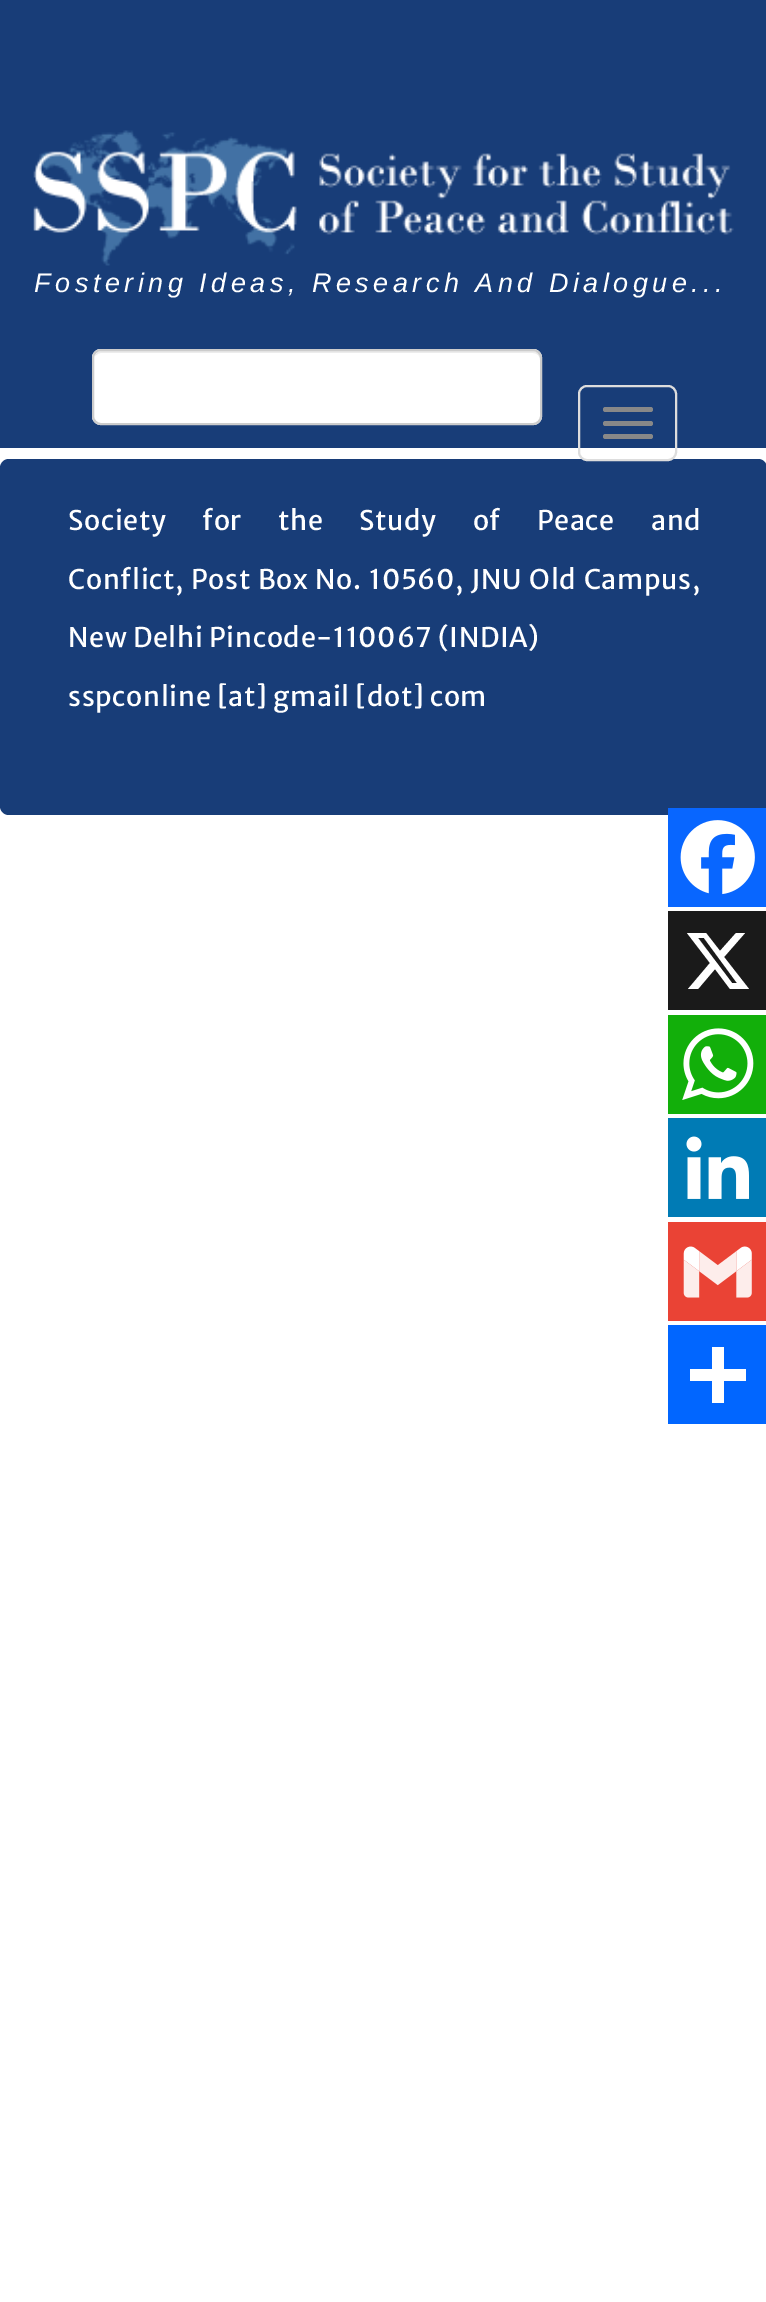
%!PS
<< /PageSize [766 2302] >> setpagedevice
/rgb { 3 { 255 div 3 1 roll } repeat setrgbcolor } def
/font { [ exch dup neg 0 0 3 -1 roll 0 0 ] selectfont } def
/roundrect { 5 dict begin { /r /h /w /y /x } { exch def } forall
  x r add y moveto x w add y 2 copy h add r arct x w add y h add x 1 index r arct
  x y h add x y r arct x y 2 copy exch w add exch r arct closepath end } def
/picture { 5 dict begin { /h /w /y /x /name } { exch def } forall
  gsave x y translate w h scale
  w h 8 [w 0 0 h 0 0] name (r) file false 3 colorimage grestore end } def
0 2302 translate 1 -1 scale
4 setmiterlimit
255 255 255 rgb
0 0 766 2302 rectfill
24 61 120 rgb
0 0 766 448 rectfill
(img_01.rgb) 33 130 701 136 picture
255 255 255 rgb
92 349 450 76 9 roundrect fill
236 236 236 rgb
101 353 moveto 432 0 rlineto 4 0 7 3 7 7 rcurveto 0 -2 rlineto 0 -4 -3 -7 -7 -7 rcurveto -431 0 rlineto -3 0 -6 2 -7 5 rcurveto 2 -2 4 -3 6 -3 rcurveto closepath fill
204 204 204 rgb
2 setlinewidth
93 350 448 74 8 roundrect stroke
24 61 120 rgb
0 459 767 356 9 roundrect fill
221 221 221 rgb
579 386 97 74 8 roundrect stroke
136 136 136 rgb
603 407 50 5 2.5 roundrect fill
603 421 50 5 2.5 roundrect fill
603 434 50 5 2.5 roundrect fill
8 102 255 rgb
668 808 98 99 rectfill
(img_02.rgb) 680 820 75 75 picture
26 26 26 rgb
668 911 98 99 rectfill
255 255 255 rgb
736 933 moveto 9 0 rlineto -21 24 rlineto 25 32 rlineto -19 0 rlineto -15 -20 rlineto -17 20 rlineto -10 0 rlineto 22 -26 rlineto -23 -30 rlineto 19 0 rlineto 14 18 rlineto closepath 732 983 moveto 5 0 rlineto -33 -45 rlineto -6 0 rlineto closepath fill
18 175 10 rgb
668 1015 98 99 rectfill
(img_03.rgb) 682 1028 72 72 picture
0 123 181 rgb
668 1118 98 99 rectfill
(img_04.rgb) 686 1136 63 63 picture
234 67 53 rgb
668 1222 98 99 rectfill
(img_05.rgb) 683 1246 69 52 picture
1 102 255 rgb
668 1325 98 99 rectfill
255 255 255 rgb
712 1347 12 56 rectfill
690 1369 56 12 rectfill
/LiberationSans-Italic 27 font
34 292 moveto 4.5 0 (Fostering Ideas, Research And Dialogue...) ashow
/MerriweatherSans-Regular 27 font
68 530 moveto 30.25 0 32 0.65 0 (Society for the Study of Peace and) awidthshow
68 589 moveto 1.5 0 32 0.65 0 (Conflict, Post Box No. 10560, JNU Old Campus,) awidthshow
68 647 moveto 0.65 0 (New Delhi Pincode-110067 \(INDIA\)) ashow
68 706 moveto 0.65 0 (sspconline [at] gmail [dot] com) ashow
showpage
